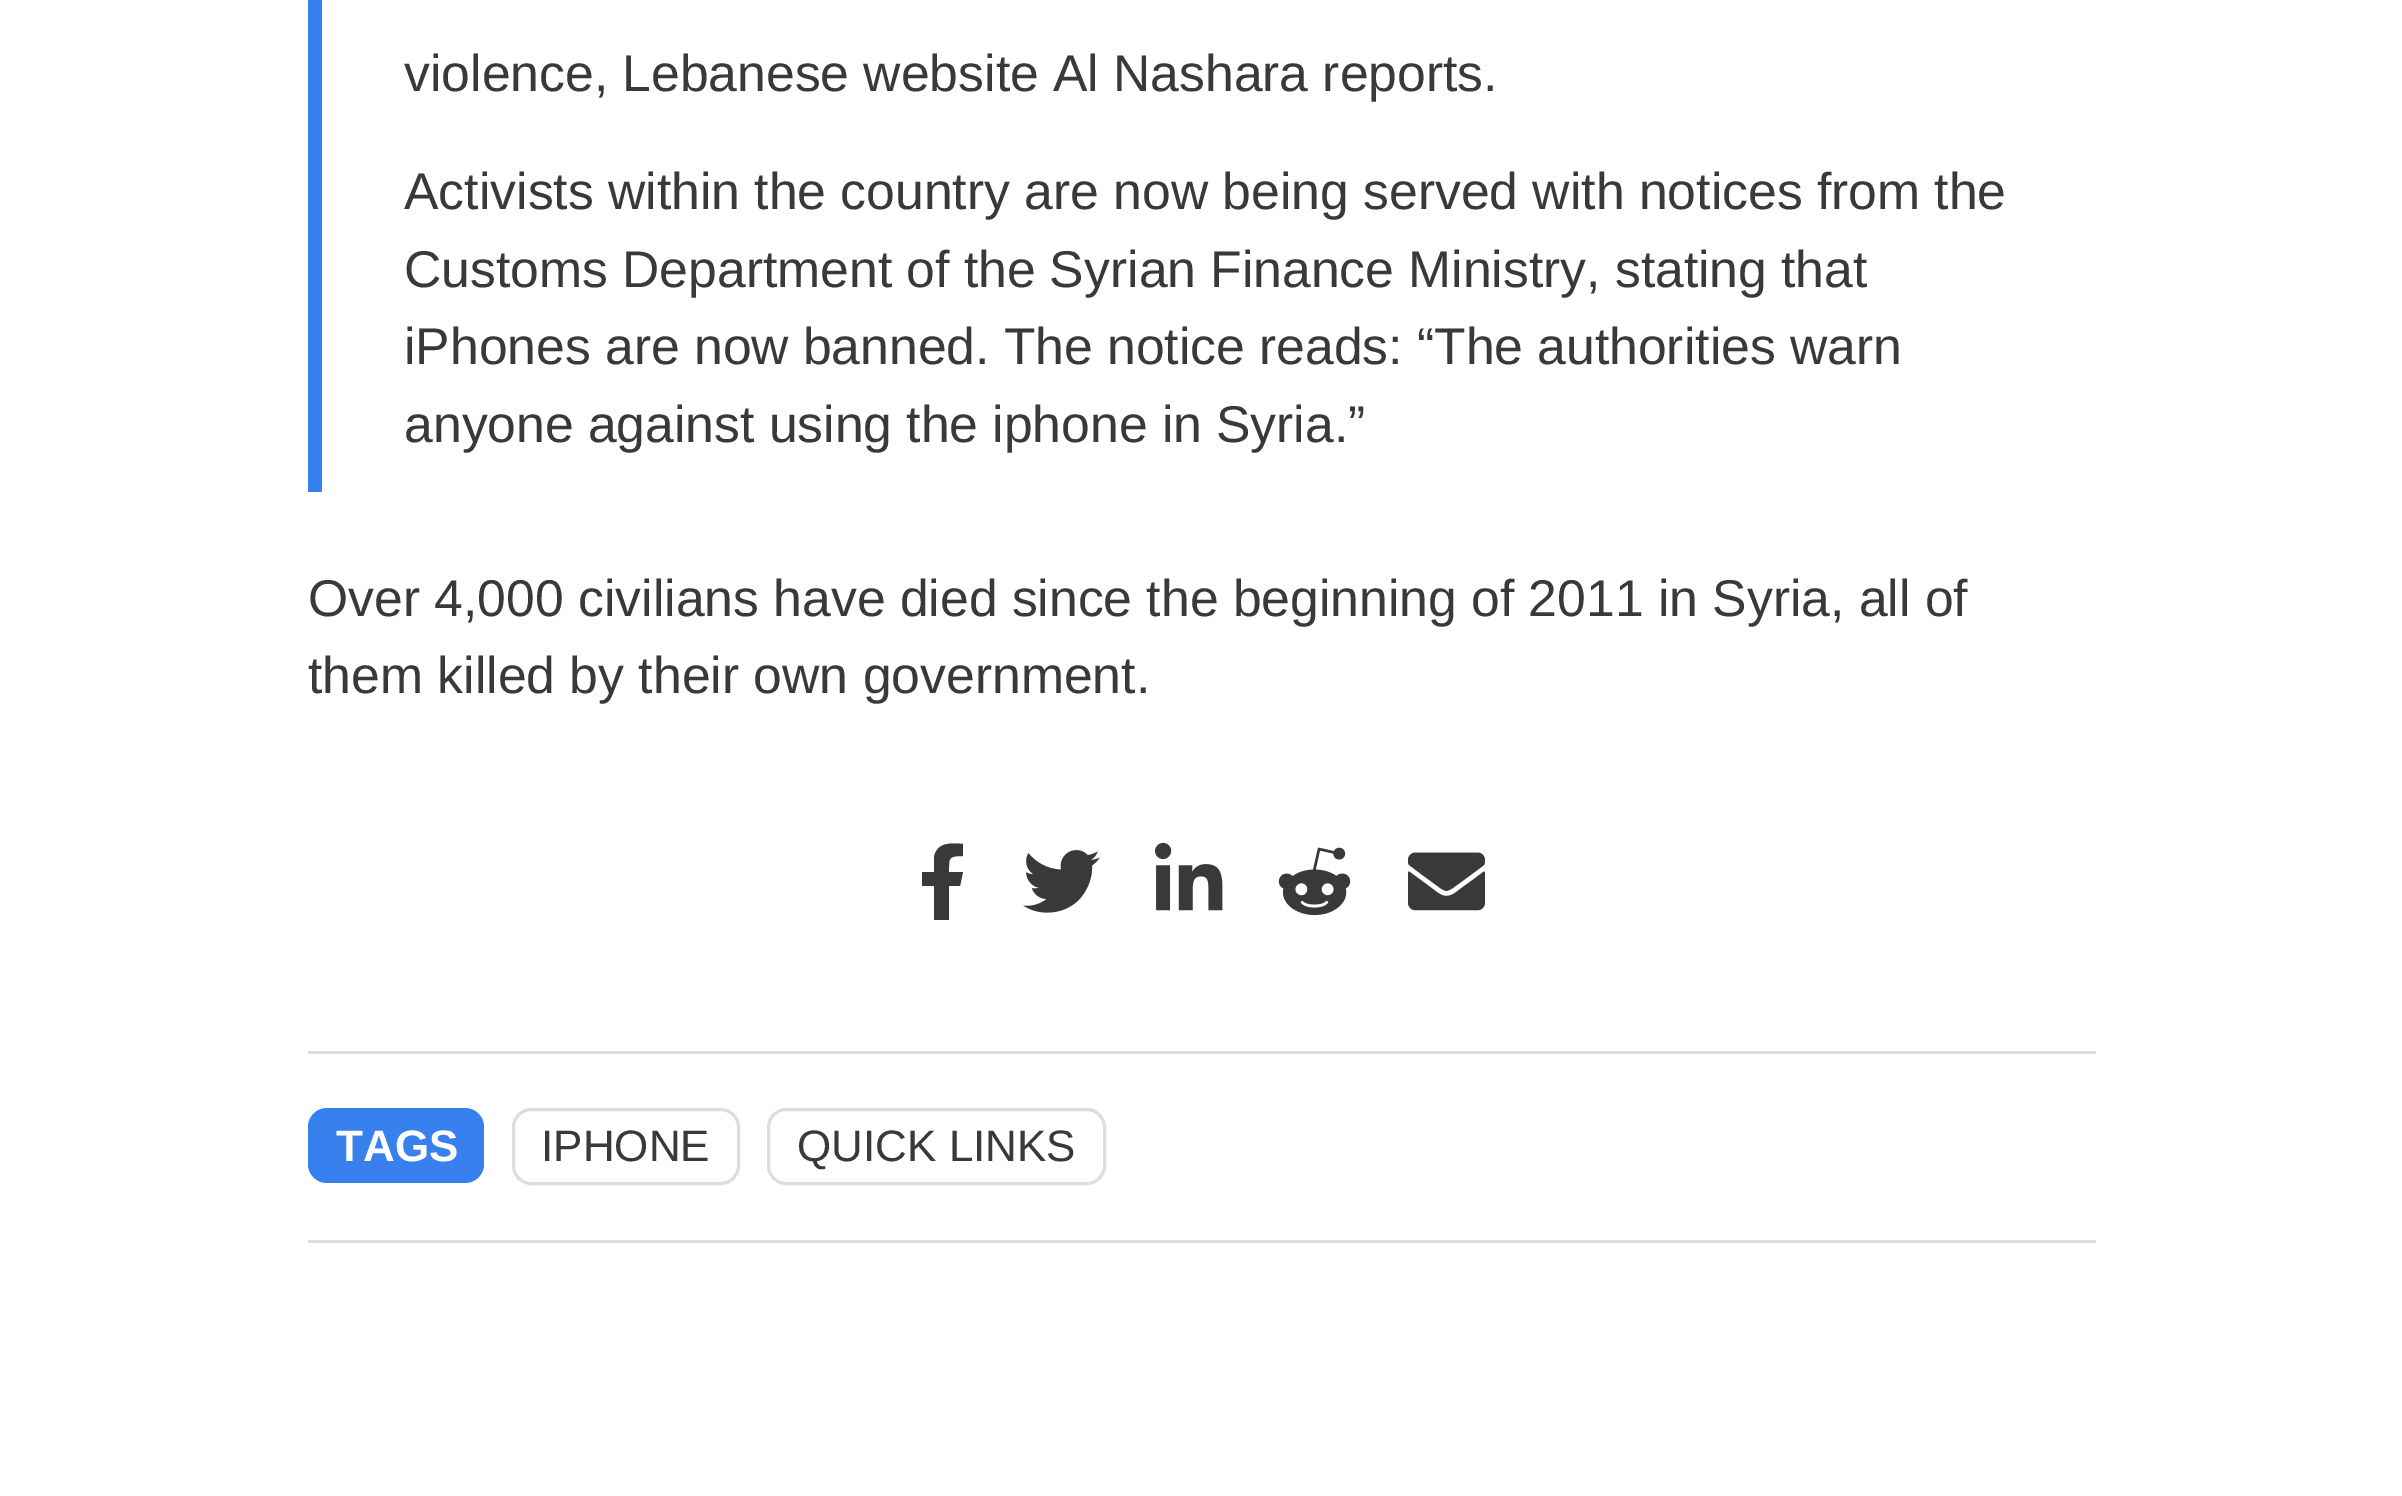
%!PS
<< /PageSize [2402 1496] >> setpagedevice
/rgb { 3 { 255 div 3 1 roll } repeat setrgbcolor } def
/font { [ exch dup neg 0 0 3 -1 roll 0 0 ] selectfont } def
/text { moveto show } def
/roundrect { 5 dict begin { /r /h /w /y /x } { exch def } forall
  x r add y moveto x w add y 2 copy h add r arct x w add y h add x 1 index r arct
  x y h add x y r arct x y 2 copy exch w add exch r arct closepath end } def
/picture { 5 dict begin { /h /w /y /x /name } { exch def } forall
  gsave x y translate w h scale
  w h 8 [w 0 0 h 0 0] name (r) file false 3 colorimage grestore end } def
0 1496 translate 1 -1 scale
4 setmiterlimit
255 255 255 rgb
0 0 2402 1496 rectfill
56 128 237 rgb
308 0 14 492 rectfill
57 57 57 rgb
960 886 moveto -11 0 rlineto 0 34 rlineto -15 0 rlineto 0 -34 rlineto -12 0 rlineto 0 -14 rlineto 12 0 rlineto 0 -15 rlineto 3 -15 17 -14 29 -13 rcurveto 0 12 rlineto -15 0 -14 2 -14 16 rcurveto 14 0 rlineto closepath fill
(img_01.rgb) 1023 850 77 63 picture
(img_02.rgb) 1155 842 68 69 picture
(img_03.rgb) 1278 847 73 69 picture
(img_04.rgb) 1408 852 77 59 picture
221 221 221 rgb
308 1051 1788 3 rectfill
308 1240 1788 3 rectfill
56 128 237 rgb
308 1108 176 75 19 roundrect fill
221 221 221 rgb
3 setlinewidth
513.5 1109.5 225 74 17.5 roundrect stroke
768.5 1109.5 336 74 17.5 roundrect stroke
/LiberationSans-Regular 51.7 font
57 57 57 rgb
404 91 moveto -0.25 0 32 (violence, Lebanese website Al Nashara reports.) widthshow
404 209 moveto -0.1 0 32 (Activists within the country are now being served with notices from the) widthshow
404 287 moveto -0.25 0 32 (Customs Department of the Syrian Finance Ministry, stating that) widthshow
404 364 moveto -0.25 0 32 (iPhones are now banned. The notice reads: “The authorities warn) widthshow
404 442 moveto -0.25 0 32 (anyone against using the iphone in Syria.”) widthshow
308 616 moveto -0.1 0 32 (Over 4,000 civilians have died since the beginning of 2011 in Syria, all of) widthshow
(them killed by their own government.) 308 693 text
/LiberationSans-Bold 44 font
255 255 255 rgb
(TAGS) 336 1161 text
/LiberationSans-Regular 44 font
57 57 57 rgb
(IPHONE) 541 1161 text
(QUICK LINKS) 797 1161 text
showpage
